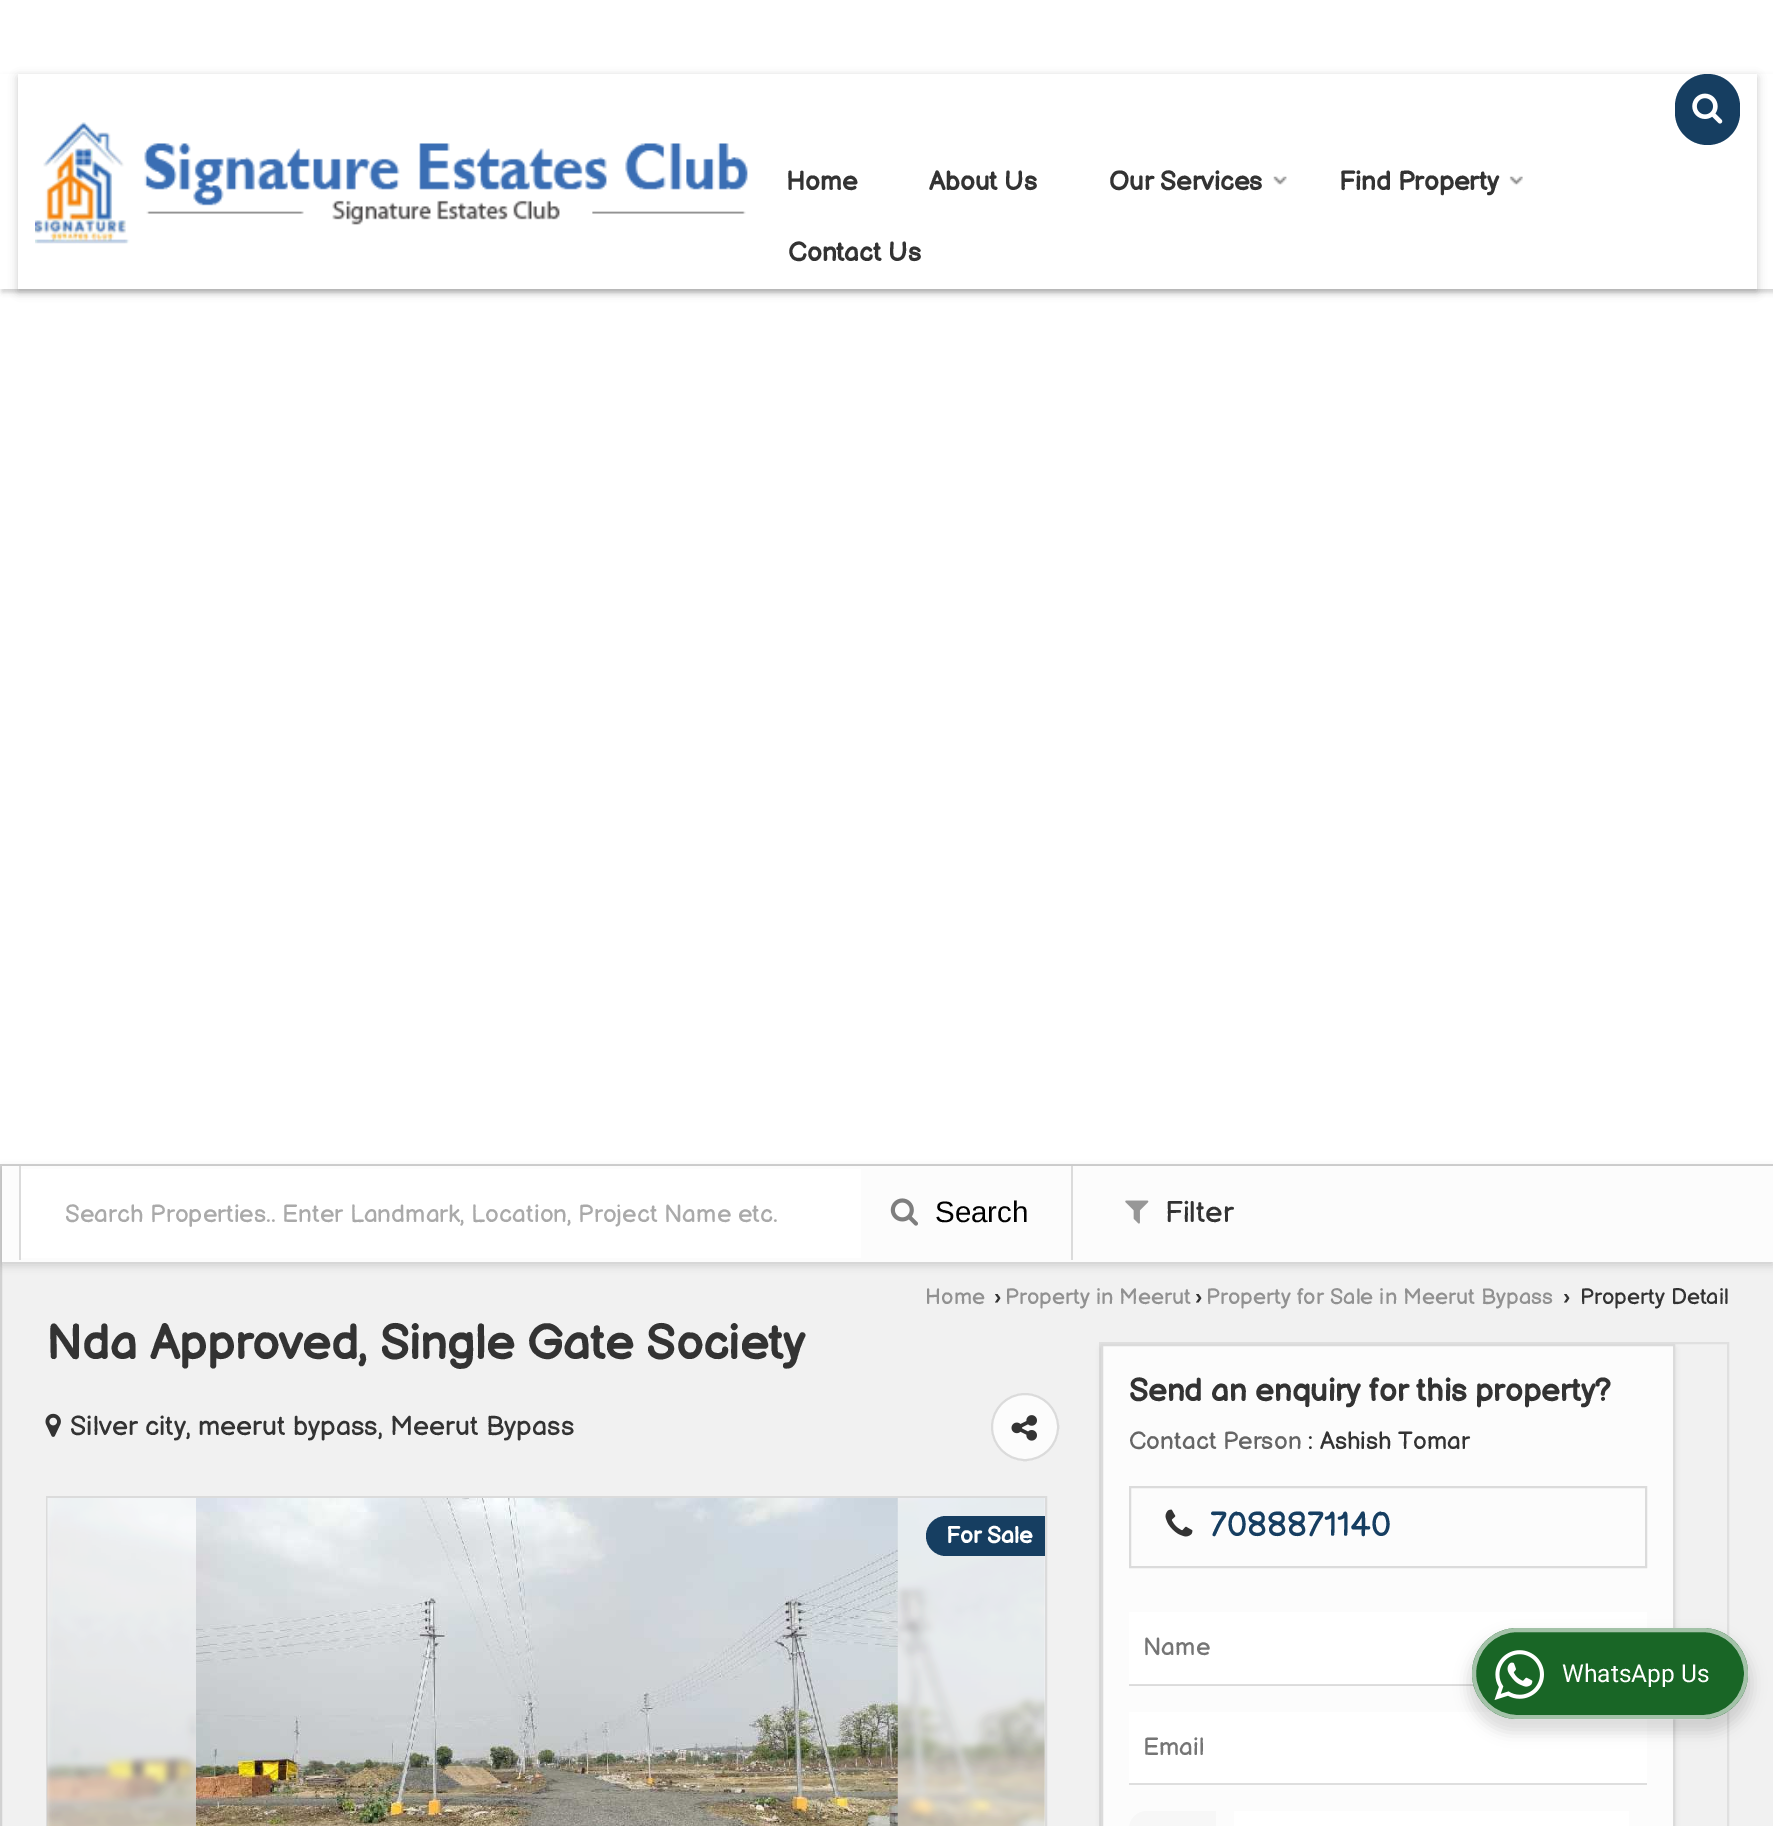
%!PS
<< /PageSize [1773 1826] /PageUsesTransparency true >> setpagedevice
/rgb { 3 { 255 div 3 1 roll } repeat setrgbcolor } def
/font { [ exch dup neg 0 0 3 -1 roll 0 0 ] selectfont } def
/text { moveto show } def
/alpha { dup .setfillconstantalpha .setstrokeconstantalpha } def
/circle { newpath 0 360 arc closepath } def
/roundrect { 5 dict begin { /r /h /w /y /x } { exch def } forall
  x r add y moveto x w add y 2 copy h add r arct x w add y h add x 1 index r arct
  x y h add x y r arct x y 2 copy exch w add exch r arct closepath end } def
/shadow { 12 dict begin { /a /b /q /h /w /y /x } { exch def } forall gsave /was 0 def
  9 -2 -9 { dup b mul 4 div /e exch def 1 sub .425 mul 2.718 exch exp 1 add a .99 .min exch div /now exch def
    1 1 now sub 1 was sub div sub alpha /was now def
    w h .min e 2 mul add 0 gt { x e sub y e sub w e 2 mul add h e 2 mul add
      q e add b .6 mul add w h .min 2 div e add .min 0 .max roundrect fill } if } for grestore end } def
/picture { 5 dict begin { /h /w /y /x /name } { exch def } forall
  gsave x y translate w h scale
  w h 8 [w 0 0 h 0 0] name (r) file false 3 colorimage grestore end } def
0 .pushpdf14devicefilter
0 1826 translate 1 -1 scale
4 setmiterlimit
255 255 255 rgb
0 0 1773 1826 rectfill
gsave
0 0 moveto 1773 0 rlineto 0 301 rlineto -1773 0 rlineto closepath 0 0 moveto 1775 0 rlineto 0 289 rlineto -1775 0 rlineto closepath eoclip newpath
0 0 0 rgb
2 4 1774 288 0 2.5 0.1 shadow
grestore
gsave
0 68 moveto 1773 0 rlineto 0 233 rlineto -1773 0 rlineto closepath 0 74 moveto 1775 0 rlineto 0 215 rlineto -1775 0 rlineto closepath eoclip newpath
0 0 0 rgb
2 77 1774 215 0 2.5 0.1 shadow
grestore
0 0 0 rgb
18 77 1739 215 0 4.5 0.2 shadow
255 255 255 rgb
18 74 1739 215 rectfill
(img_01.rgb) 35 122 713 122 picture
22 62 97 rgb
1675 74 65 71 32.5 roundrect fill
(img_02.rgb) 1692 93 31 31 picture
(img_03.rgb) 1273 176 14 9 picture
(img_04.rgb) 1509 176 14 10 picture
241 241 241 rgb
2 1262 1771 564 rectfill
210 210 210 rgb
2 setlinewidth
1 1165 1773 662 rectstroke
0 0 0 rgb
2 1169 1771 96 0 4.5 0.15 shadow
252 252 252 rgb
2 1166 1771 96 rectfill
219 219 219 rgb
1071 1166 2 94 rectfill
19 1166 2 94 rectfill
255 255 255 rgb
21 1169 840 89 rectfill
(img_05.rgb) 890 1198 28 28 picture
(img_06.rgb) 1125 1200 24 24 picture
(img_07.rgb) 45 1413 16 24 picture
252 252 252 rgb
1025 1427 34 circle fill
0.13 alpha
0 0 0 rgb
1025 1427 33 circle stroke
1 alpha
(img_08.rgb) 1011 1415 26 26 picture
252 252 252 rgb
47 1497 moveto 999 0 rlineto 0 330 rlineto -999 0 rlineto closepath gsave fill grestore
219 219 219 rgb
stroke
(img_09.rgb) 47 1498 998 328 picture
gsave
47 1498 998 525 rectclip
255 255 255 rgb
47 1481 1015 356 0 3.5 0.5 shadow
grestore
(img_10.rgb) 196 1498 702 328 picture
22 62 97 rgb
946 1516 moveto 99 0 rlineto 0 40 rlineto -99 0 rlineto -11 0 -20 -9 -20 -20 rcurveto 0 -11 9 -20 20 -20 rcurveto closepath fill
224 224 224 rgb
1100 1343 628 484 rectstroke
0 0 0 rgb
1101 1348 574 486 0 2.5 0.08 shadow
252 252 252 rgb
1103 1346 570 480 rectfill
219 219 219 rgb
1129 1685 345 1 rectfill
1102 1345 572 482 rectstroke
1130 1487 516 80 rectstroke
(img_11.rgb) 1165 1509 28 28 picture
255 255 255 rgb
1129 1612 518 72 rectfill
222 222 222 rgb
1129 1684 345 1 rectfill
255 255 255 rgb
1129 1712 518 71 rectfill
222 222 222 rgb
1129 1783 518 2 rectfill
247 247 247 rgb
1147 1811 moveto 69 0 rlineto 0 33 rlineto -69 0 rlineto -10 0 -18 -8 -18 -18 rcurveto 0 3 rlineto 0 -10 8 -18 18 -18 rcurveto closepath fill
255 255 255 rgb
1234 1811 395 15 rectfill
0 0 0 rgb
1468 1635 284 98 49 7 0.14 shadow
25 102 38 rgb
1472 1628 276 91 45.5 roundrect fill
0.6 alpha
255 255 255 rgb
4 setlinewidth
1474 1630 272 87 43.5 roundrect stroke
1 alpha
(img_12.rgb) 1494 1650 50 50 picture
/BalsamiqSans-Bold 26.25 font
51 51 51 rgb
(Home) 786 190 text
(About Us) 929 190 text
(Our Services) 1109 190 text
(Find Property) 1339 190 text
(Contact Us) 788 261 text
/BalsamiqSans-Regular 24.5 font
170 170 170 rgb
(Search Properties.. Enter Landmark, Location, Project Name etc.) 65 1222 text
/LiberationSans-Regular 29.5 font
0 0 0 rgb
(Search) 935 1222 text
/BalsamiqSans-Regular 29.5 font
51 51 51 rgb
(Filter) 1165 1222 text
/BalsamiqSans-Regular 22 font
145 145 145 rgb
(Home) 925 1304 text
/LiberationSans-Bold 22 font
51 51 51 rgb
(›) 994 1304 text
/BalsamiqSans-Regular 22 font
145 145 145 rgb
(Property in Meerut) 1005 1304 text
/LiberationSans-Bold 22 font
51 51 51 rgb
(›) 1195 1304 text
/BalsamiqSans-Regular 22 font
145 145 145 rgb
(Property for Sale in Meerut Bypass) 1206 1304 text
/LiberationSans-Bold 22 font
51 51 51 rgb
(›) 1563 1304 text
/BalsamiqSans-Regular 22 font
(Property Detail) 1580 1304 text
/BalsamiqSans-Bold 48 font
(Nda Approved, Single Gate Society) 46 1359 text
/BalsamiqSans-Regular 27 font
(Silver city, meerut bypass, Meerut Bypass) 70 1435 text
/BalsamiqSans-Bold 23 font
255 255 255 rgb
(For Sale) 946 1543 text
/BalsamiqSans-Bold 31.5 font
51 51 51 rgb
(Send an enquiry for this property?) 1129 1401 text
/BalsamiqSans-Regular 24.5 font
101 101 101 rgb
(Contact Person) 1129 1449 text
51 51 51 rgb
(: Ashish Tomar) 1308 1449 text
/BalsamiqSans-Regular 34.25 font
22 62 97 rgb
(7088871140) 1210 1536 text
/BalsamiqSans-Regular 24.5 font
117 117 117 rgb
(Name) 1143 1655 text
(Email) 1143 1755 text
/Roboto-Regular 24.5 font
255 255 255 rgb
(WhatsApp Us) 1562 1682 text
.poppdf14devicefilter showpage
